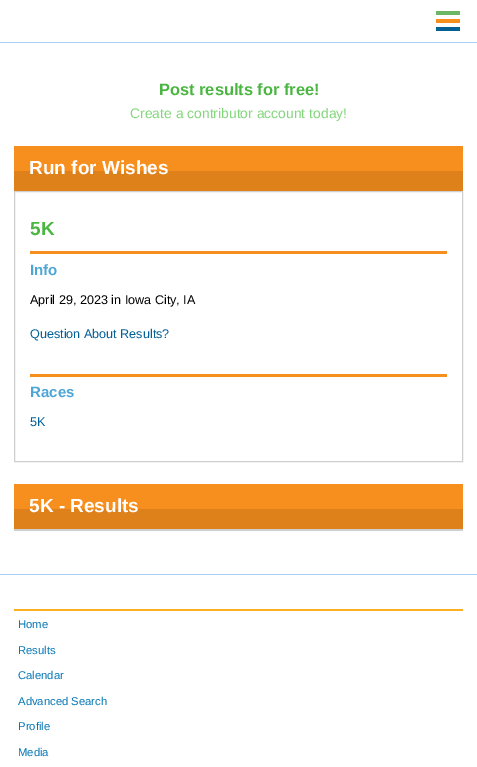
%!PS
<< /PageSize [477 767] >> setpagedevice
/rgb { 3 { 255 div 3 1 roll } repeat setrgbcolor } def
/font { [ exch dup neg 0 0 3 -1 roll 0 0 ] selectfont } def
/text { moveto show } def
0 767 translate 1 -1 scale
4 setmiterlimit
255 255 255 rgb
0 0 477 767 rectfill
172 208 247 rgb
0 42 477 1 rectfill
107 183 102 rgb
436 11 24 4 rectfill
247 143 30 rgb
436 19 24 4 rectfill
3 96 149 rgb
436 27 24 4 rectfill
247 143 30 rgb
14 146 449 25 rectfill
222 129 27 rgb
14 171 449 20 rectfill
207 207 207 rgb
14.5 191.5 448 270 rectstroke
247 143 30 rgb
30 251 417 3 rectfill
30 374 417 3 rectfill
14 484 449 25 rectfill
222 129 27 rgb
14 509 449 20 rectfill
207 207 207 rgb
14 529 449 2 rectfill
172 208 247 rgb
0 574 477 1 rectfill
253 175 36 rgb
14 609 449 2 rectfill
/LiberationSans-Bold 16.4 font
74 182 65 rgb
(Post results for free!) 159 95 text
/LiberationSans-Regular 13.9 font
132 214 125 rgb
(Create a contributor account today!) 130 118 text
/LiberationSans-Bold 19 font
255 255 255 rgb
(Run for Wishes) 29 174 text
74 182 65 rgb
(5K) 30 235 text
/LiberationSans-Bold 15 font
77 166 214 rgb
(Info) 30 275 text
/LiberationSans-Regular 12.6 font
0 0 0 rgb
(April 29, 2023 in Iowa City, IA) 30 304 text
3 96 149 rgb
(Question About Results?) 30 338 text
/LiberationSans-Bold 15 font
77 166 214 rgb
(Races) 30 397 text
/LiberationSans-Regular 12.6 font
3 96 149 rgb
(5K) 30 426 text
/LiberationSans-Bold 19 font
255 255 255 rgb
(5K - Results) 29 512 text
/LiberationSans-Regular 11.25 font
4 118 181 rgb
(Home) 18 628 text
(Results) 18 654 text
(Calendar) 18 679 text
(Advanced Search) 18 705 text
(Profile) 18 730 text
(Media) 18 756 text
showpage
